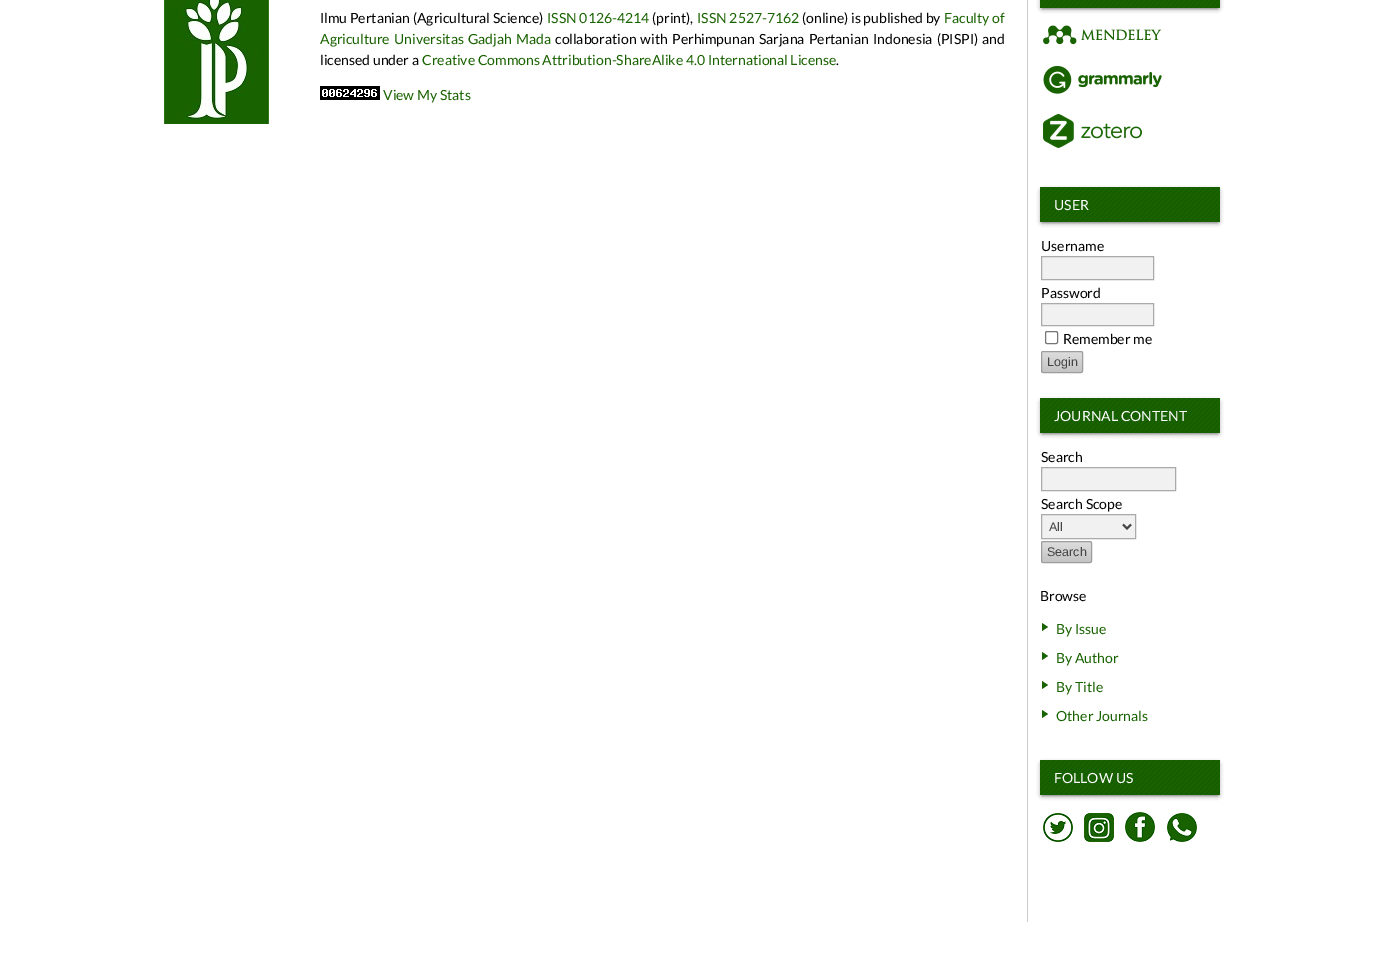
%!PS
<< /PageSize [1383 961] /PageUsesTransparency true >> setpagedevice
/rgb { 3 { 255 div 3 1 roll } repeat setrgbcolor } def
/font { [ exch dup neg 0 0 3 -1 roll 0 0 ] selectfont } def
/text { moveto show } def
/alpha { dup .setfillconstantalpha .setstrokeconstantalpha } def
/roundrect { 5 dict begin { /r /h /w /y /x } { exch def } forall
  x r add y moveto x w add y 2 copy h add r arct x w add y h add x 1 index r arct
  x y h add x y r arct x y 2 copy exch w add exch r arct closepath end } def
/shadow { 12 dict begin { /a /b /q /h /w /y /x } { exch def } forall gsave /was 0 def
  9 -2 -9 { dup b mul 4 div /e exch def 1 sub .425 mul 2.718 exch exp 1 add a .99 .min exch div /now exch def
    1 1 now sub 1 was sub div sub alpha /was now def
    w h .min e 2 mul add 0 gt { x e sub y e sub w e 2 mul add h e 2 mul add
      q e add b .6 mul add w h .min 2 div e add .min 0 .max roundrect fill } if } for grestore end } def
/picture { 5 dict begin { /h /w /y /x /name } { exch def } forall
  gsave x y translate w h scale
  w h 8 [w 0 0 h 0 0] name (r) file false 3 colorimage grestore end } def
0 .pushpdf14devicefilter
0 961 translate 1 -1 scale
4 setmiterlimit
255 255 255 rgb
0 0 1383 961 rectfill
(img_01.rgb) 164 0 105 124 picture
(img_02.rgb) 320 86 60 14 picture
204 204 204 rgb
1027 0 1 922 rectfill
51 51 51 rgb
1042 -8 176 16 0 2.5 1 shadow
24 98 0 rgb
1040 0 180 8 rectfill
(img_03.rgb) 1040 0 180 8 picture
(img_04.rgb) 1043 25 119 20 picture
(img_05.rgb) 1043 66 119 28 picture
(img_06.rgb) 1043 114 99 34 picture
51 51 51 rgb
1042 191 176 31 0 2.5 1 shadow
24 98 0 rgb
1040 187 180 35 rectfill
(img_07.rgb) 1040 187 180 35 picture
241 241 241 rgb
1041.5 256.5 moveto 112 0 rlineto 0 23 rlineto -112 0 rlineto closepath gsave fill grestore
170 170 170 rgb
stroke
241 241 241 rgb
1041.5 303.5 moveto 112 0 rlineto 0 22 rlineto -112 0 rlineto closepath gsave fill grestore
170 170 170 rgb
stroke
118 118 118 rgb
1045.5 331.5 12 12 1.5 roundrect stroke
gsave
1041 351 42 22 2 roundrect clip newpath
gsave 1041 352 moveto 42 0 rlineto 0 20 rlineto -42 0 rlineto closepath clip newpath
<< /ShadingType 2 /ColorSpace /DeviceRGB /Coords [1062 352 1062 372] /Extend [true true] /Function << /FunctionType 2 /Domain [0 1] /C0 [0.867 0.867 0.867] /C1 [0.769 0.769 0.769] /N 1 >> >> shfill grestore
grestore
157 157 157 rgb
1041.5 351.5 41 21 1.5 roundrect stroke
51 51 51 rgb
1042 402 176 31 0 2.5 1 shadow
24 98 0 rgb
1040 398 180 35 rectfill
(img_07.rgb) 1040 398 180 35 picture
241 241 241 rgb
1041.5 467.5 moveto 134 0 rlineto 0 23 rlineto -134 0 rlineto closepath gsave fill grestore
170 170 170 rgb
stroke
241 241 241 rgb
1041.5 514.5 moveto 94 0 rlineto 0 24 rlineto -94 0 rlineto closepath gsave fill grestore
170 170 170 rgb
stroke
68 68 68 rgb
2 setlinewidth
1123 524.5 moveto 4 4 rlineto 4 -4 rlineto stroke
gsave
1041 541 51 22 2 roundrect clip newpath
gsave 1041 542 moveto 51 0 rlineto 0 20 rlineto -51 0 rlineto closepath clip newpath
<< /ShadingType 2 /ColorSpace /DeviceRGB /Coords [1067 542 1067 562] /Extend [true true] /Function << /FunctionType 2 /Domain [0 1] /C0 [0.867 0.867 0.867] /C1 [0.769 0.769 0.769] /N 1 >> >> shfill grestore
grestore
157 157 157 rgb
1 setlinewidth
1041.5 541.5 50 21 1.5 roundrect stroke
24 98 0 rgb
1042 631 moveto 0 -8 rlineto 6 4 rlineto closepath 1042 660 moveto 0 -8 rlineto 6 4 rlineto closepath fill
1042 689 moveto 0 -8 rlineto 6 4 rlineto closepath 1042 718 moveto 0 -8 rlineto 6 4 rlineto closepath fill
51 51 51 rgb
1042 764 176 31 0 2.5 1 shadow
24 98 0 rgb
1040 760 180 35 rectfill
(img_07.rgb) 1040 760 180 35 picture
(img_08.rgb) 1043 813 30 29 picture
(img_09.rgb) 1084 813 30 29 picture
(img_10.rgb) 1125 812 30 30 picture
(img_11.rgb) 1167 813 30 29 picture
/Lato-Regular 14 font
0 0 0 rgb
(Ilmu Pertanian \(Agricultural Science\)) 320 23 text
24 98 0 rgb
(ISSN 0126-4214) 547 23 text
0 0 0 rgb
(\(print\),) 652 23 text
24 98 0 rgb
(ISSN 2527-7162) 697 23 text
0 0 0 rgb
(\(online\) is published by) 802 23 text
24 98 0 rgb
(Faculty of) 944 23 text
320 44 moveto 1.5 0 32 (Agriculture Universitas Gadjah Mada) widthshow
0 0 0 rgb
555 44 moveto 1.5 0 32 (collaboration with Perhimpunan Sarjana Pertanian Indonesia \(PISPI\) and) widthshow
(licensed under a) 320 65 text
24 98 0 rgb
(Creative Commons Attribution-ShareAlike 4.0 International License) 422 65 text
0 0 0 rgb
(.) 836 65 text
24 98 0 rgb
(View My Stats) 383 100 text
255 255 255 rgb
(USER) 1054 210 text
0 0 0 rgb
(Username) 1041 251 text
(Password) 1041 298 text
(Remember me) 1063 344 text
/LiberationSans-Regular 12.5 font
68 68 68 rgb
(Login) 1047 366 text
/Lato-Regular 14 font
255 255 255 rgb
(JOURNAL CONTENT) 1054 421 text
0 0 0 rgb
(Search) 1041 462 text
(Search Scope) 1041 509 text
/LiberationSans-Regular 12.5 font
68 68 68 rgb
(All) 1049 531 text
(Search) 1047 556 text
/Lato-Regular 14 font
0 0 0 rgb
(Browse) 1040 601 text
24 98 0 rgb
(By Issue) 1056 634 text
(By Author) 1056 663 text
(By Title) 1056 692 text
(Other Journals) 1056 721 text
255 255 255 rgb
(FOLLOW US) 1054 783 text
.poppdf14devicefilter showpage
